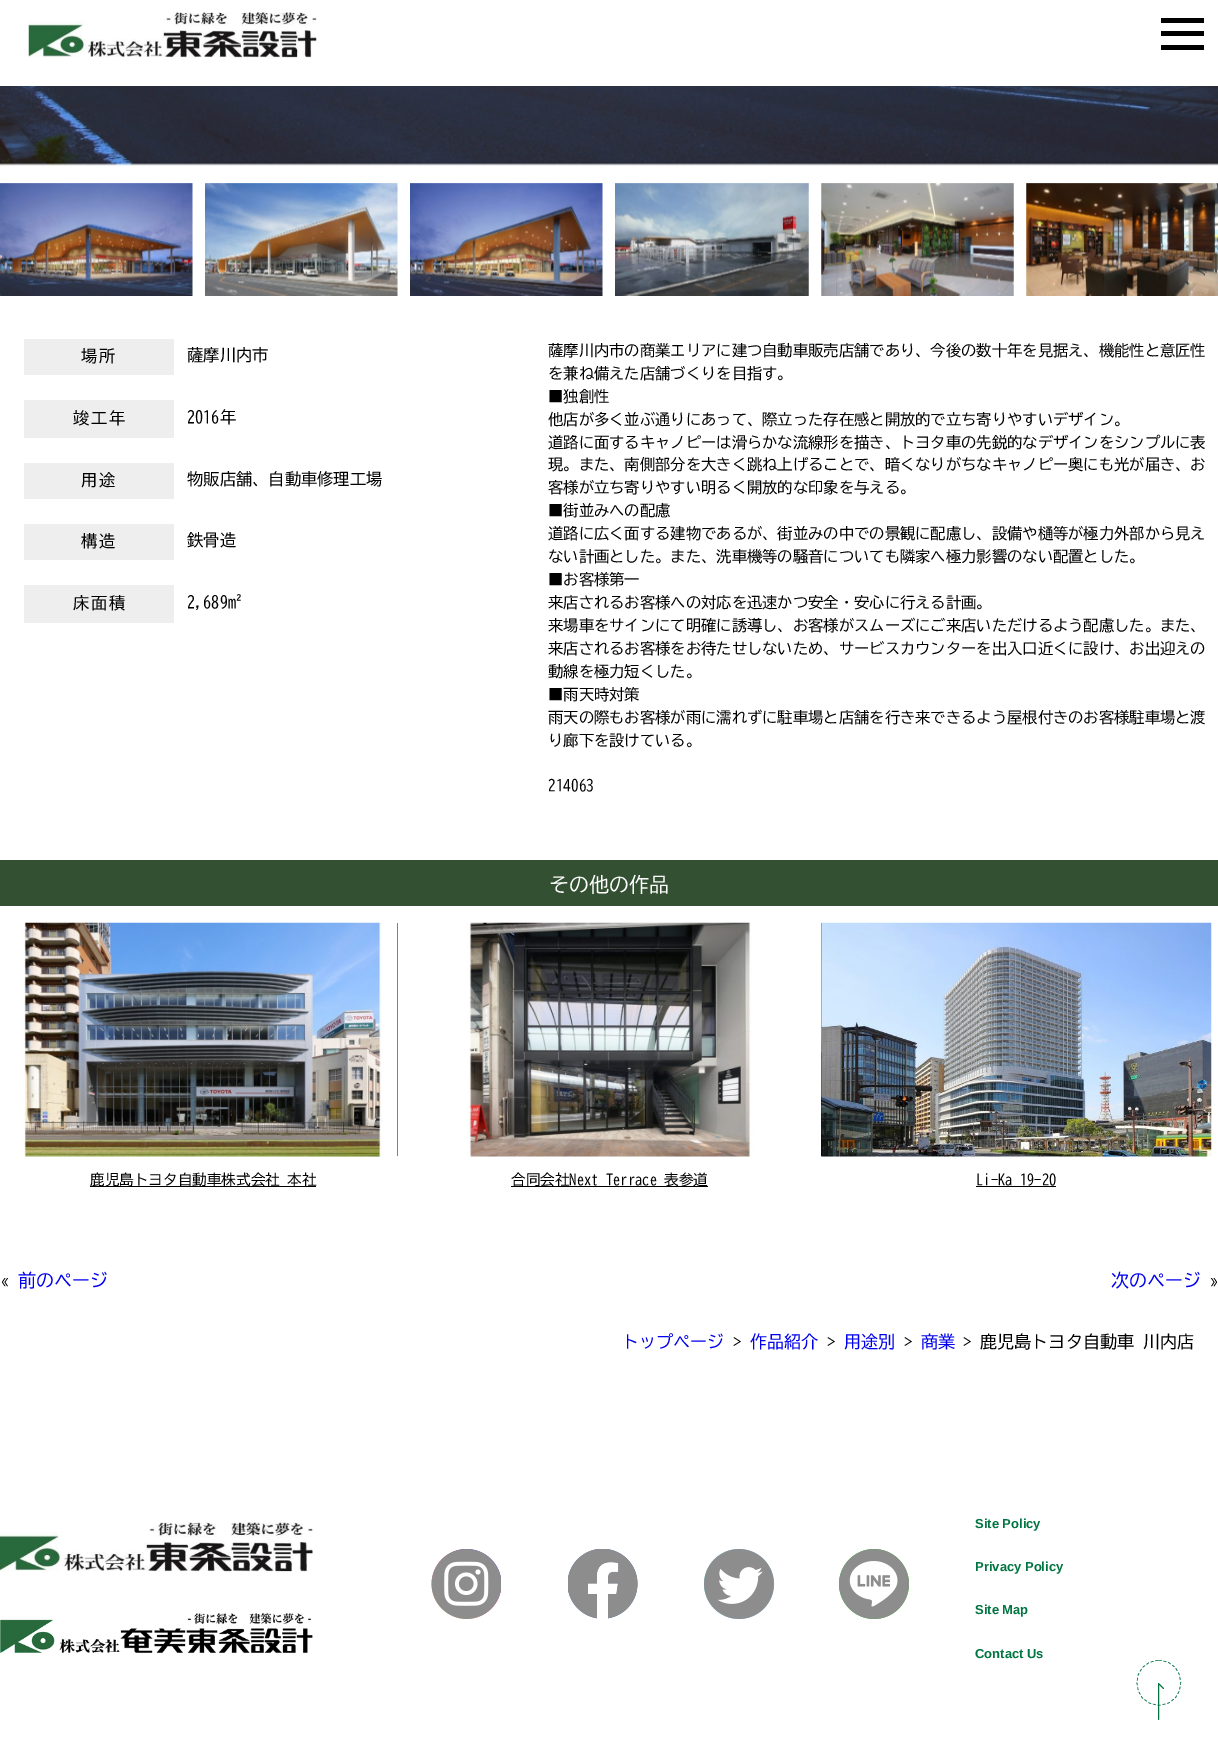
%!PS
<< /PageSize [1218 1745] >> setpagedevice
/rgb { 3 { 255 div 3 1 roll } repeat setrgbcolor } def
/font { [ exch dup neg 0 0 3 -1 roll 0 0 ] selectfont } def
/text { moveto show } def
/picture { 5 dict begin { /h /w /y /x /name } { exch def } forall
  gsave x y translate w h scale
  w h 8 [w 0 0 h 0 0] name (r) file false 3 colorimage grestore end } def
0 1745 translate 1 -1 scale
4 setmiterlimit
255 255 255 rgb
0 0 1218 1745 rectfill
(img_01.rgb) 28 12 289 46 picture
0 0 0 rgb
1161 18 43 5 rectfill
1161 31 43 5 rectfill
1161 45 43 5 rectfill
(img_02.rgb) 0 86 1218 81 picture
(img_03.rgb) 0 183 193 113 picture
(img_04.rgb) 205 183 193 113 picture
(img_05.rgb) 410 183 193 113 picture
(img_06.rgb) 615 183 194 113 picture
(img_07.rgb) 821 183 193 113 picture
(img_08.rgb) 1026 183 192 113 picture
238 238 238 rgb
24 339 150 36 rectfill
24 400 150 38 rectfill
24 463 150 36 rectfill
24 524 150 36 rectfill
24 585 150 38 rectfill
51 80 50 rgb
0 860 1218 46 rectfill
0 0 0 rgb
397 923 1 233 rectfill
(img_09.rgb) 8 922 390 235 picture
90 1186 226 1 rectfill
(img_10.rgb) 415 922 390 235 picture
511 1186 197 1 rectfill
(img_11.rgb) 821 922 391 235 picture
976 1186 80 1 rectfill
(img_12.rgb) 0 1522 313 50 picture
(img_13.rgb) 0 1612 313 41 picture
(img_14.rgb) 431 1549 70 70 picture
(img_15.rgb) 431 1549 70 70 picture
(img_16.rgb) 568 1549 70 70 picture
(img_17.rgb) 568 1549 70 70 picture
(img_18.rgb) 704 1549 70 70 picture
(img_19.rgb) 704 1549 70 70 picture
(img_20.rgb) 839 1549 70 70 picture
(img_21.rgb) 839 1549 70 70 picture
0 116 65 rgb
0.6 setlinewidth
1 setlinecap
[2.43 2.43] 0 setdash
1159 1660.5 moveto 29 0 29 44.5 0 44.5 rcurveto -29.5 0 -29.5 -44.5 0 -44.5 rcurveto closepath stroke
0.9 setlinewidth
1 setlinejoin
[] 0 setdash
1158.5 1719.5 moveto 0 -36 rlineto 1163.5 1688.5 moveto -5 -5 rlineto stroke
/BIZUDGothic-Regular 16.25 font
0 0 0 rgb
81 362 moveto 1.5 0 (場所) ashow
(薩摩川内市) 187 361 text
73 424 moveto 1.5 0 (竣工年) ashow
(2016年) 187 423 text
81 486 moveto 1.5 0 (用途) ashow
(物販店舗、自動車修理工場) 187 485 text
81 547 moveto 1.5 0 (構造) ashow
(鉄骨造) 187 546 text
73 609 moveto 1.5 0 (床面積) ashow
(2,689m²) 187 608 text
/BIZUDGothic-Regular 15.3 font
(薩摩川内市の商業エリアに建つ自動車販売店舗であり、今後の数十年を見据え、機能性と意匠性) 548 356 text
(を兼ね備えた店舗づくりを目指す。) 548 379 text
(■独創性) 548 402 text
(他店が多く並ぶ通りにあって、際立った存在感と開放的で立ち寄りやすいデザイン。) 548 425 text
(道路に面するキャノピーは滑らかな流線形を描き、トヨタ車の先鋭的なデザインをシンプルに表) 548 448 text
(現。また、南側部分を大きく跳ね上げることで、暗くなりがちなキャノピー奥にも光が届き、お) 548 470 text
(客様が立ち寄りやすい明るく開放的な印象を与える。) 548 493 text
(■街並みへの配慮) 548 516 text
(道路に広く面する建物であるが、街並みの中での景観に配慮し、設備や樋等が極力外部から見え) 548 539 text
(ない計画とした。また、洗車機等の騒音についても隣家へ極力影響のない配置とした。) 548 562 text
(■お客様第一) 548 585 text
(来店されるお客様への対応を迅速かつ安全・安心に行える計画。) 548 608 text
(来場車をサインにて明確に誘導し、お客様がスムーズにご来店いただけるよう配慮した。また、) 548 631 text
(来店されるお客様をお待たせしないため、サービスカウンターを出入口近くに設け、お出迎えの) 548 654 text
(動線を極力短くした。) 548 677 text
(■雨天時対策) 548 700 text
(雨天の際もお客様が雨に濡れずに駐車場と店舗を行き来できるよう屋根付きのお客様駐車場と渡) 548 723 text
(り廊下を設けている。) 548 746 text
(214063) 548 791 text
/BIZUDGothic-Regular 20 font
255 255 255 rgb
(その他の作品) 549 892 text
/BIZUDGothic-Regular 14.6 font
0 0 0 rgb
(鹿児島トヨタ自動車株式会社 本社) 90 1185 text
(合同会社Next Terrace 表参道) 511 1185 text
(Li-Ka 19-20) 976 1185 text
/BIZUDGothic-Regular 18 font
(«) 0 1287 text
0 0 238 rgb
(前のページ) 18 1287 text
(次のページ) 1111 1287 text
0 0 0 rgb
(») 1210 1287 text
/BIZUDGothic-Regular 17.1 font
0 0 238 rgb
(トップページ) 622 1348 text
0 0 0 rgb
(>) 733 1348 text
0 0 238 rgb
(作品紹介) 750 1348 text
0 0 0 rgb
(>) 827 1348 text
0 0 238 rgb
(用途別) 844 1348 text
0 0 0 rgb
(>) 904 1348 text
0 0 238 rgb
(商業) 921 1348 text
0 0 0 rgb
(> 鹿児島トヨタ自動車 川内店) 963 1348 text
/LiberationSans-Bold 13 font
0 116 65 rgb
(Site Policy) 975 1528 text
(Privacy Policy) 975 1571 text
(Site Map) 975 1614 text
(Contact Us) 975 1658 text
showpage
